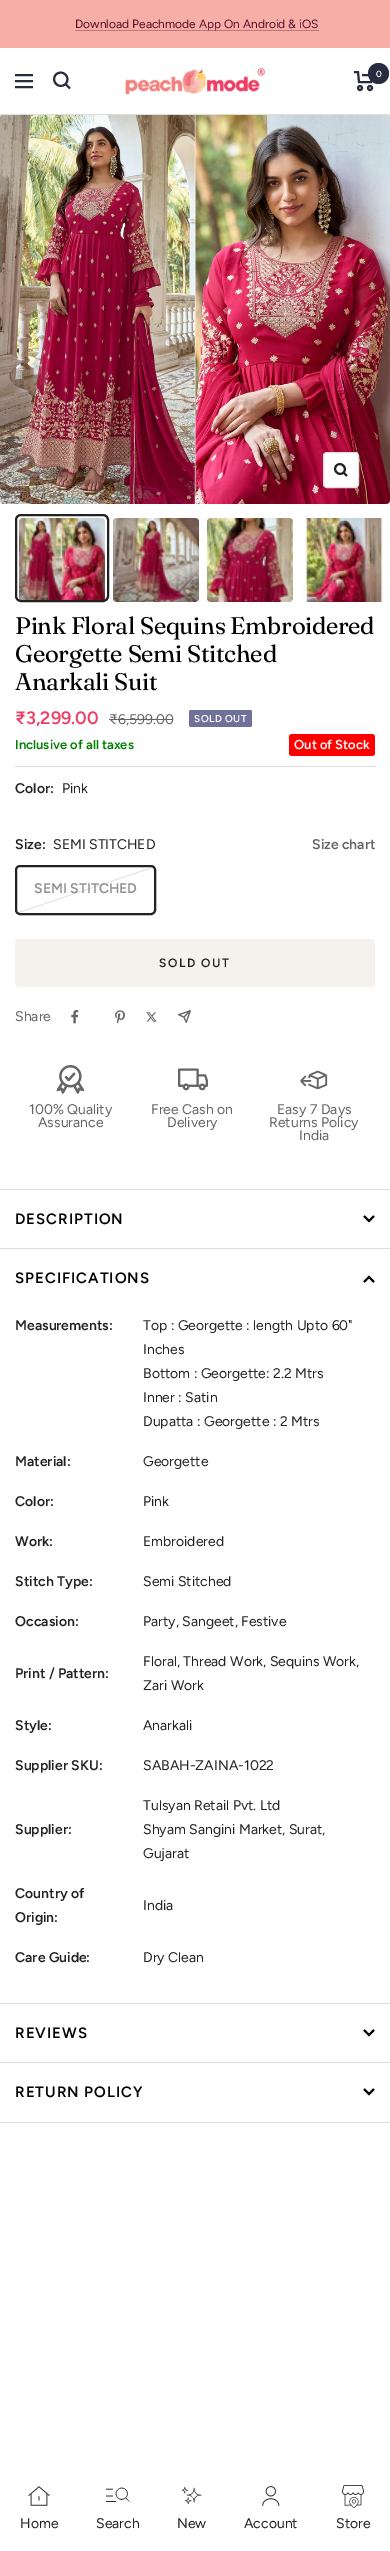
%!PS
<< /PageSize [390 2551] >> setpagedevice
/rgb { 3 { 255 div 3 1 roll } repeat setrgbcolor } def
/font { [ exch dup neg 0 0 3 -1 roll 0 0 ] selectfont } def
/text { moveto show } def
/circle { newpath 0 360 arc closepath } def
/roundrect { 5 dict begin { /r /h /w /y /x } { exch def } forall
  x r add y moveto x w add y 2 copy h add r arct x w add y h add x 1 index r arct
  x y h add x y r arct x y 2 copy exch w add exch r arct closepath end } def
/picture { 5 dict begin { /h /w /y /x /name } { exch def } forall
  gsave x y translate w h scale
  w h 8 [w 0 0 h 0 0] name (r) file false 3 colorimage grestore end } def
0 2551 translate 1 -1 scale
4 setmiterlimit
255 255 255 rgb
0 0 390 2551 rectfill
247 174 166 rgb
0 0 390 48 rectfill
191 119 123 rgb
75 30 244 1 rectfill
222 222 222 rgb
0 114 390 1 rectfill
40 44 63 rgb
2 setlinewidth
65.5 84 moveto 6 -6.5 -3 -15.5 -9.5 -9.5 rcurveto -6 6.5 3 15.5 9.5 9.5 rcurveto closepath 65.5 84 moveto 4.5 4.5 rlineto 15 75 moveto 18 0 rlineto 15 87 moveto 18 0 rlineto closepath 15 81 moveto 18 0 rlineto closepath stroke
(img_01.rgb) 125 68 140 26 picture
354 72 moveto 4 0 rlineto 1 10 rlineto 12 0 rlineto 2 -7 rlineto -11 0 rlineto stroke
360 88 2 circle stroke
370 88 2 circle stroke
378.5 73.5 10.5 circle fill
(img_02.rgb) 0 115 390 389 picture
255 255 255 rgb
323.5 452.5 35 35 3.5 roundrect gsave fill grestore
222 222 222 rgb
1 setlinewidth
stroke
34 34 34 rgb
2 setlinewidth
343.5 472.5 moveto 4.5 -4.5 -2.5 -11.5 -7 -7 rcurveto -4.5 4.5 2.5 11.5 7 7 rcurveto closepath 343.5 472.5 moveto 3.5 3.5 rlineto stroke
(img_03.rgb) 19 518 86 84 picture
16 515 92 86 5 roundrect stroke
(img_04.rgb) 113 518 86 84 picture
(img_05.rgb) 207 518 86 84 picture
(img_06.rgb) 301 518 82 84 picture
222 222 222 rgb
15 766 360 1 rectfill
100 100 100 rgb
109 719 64 1 rectfill
111 113 155 rgb
189 710 63 17 2 roundrect fill
255 0 0 rgb
289 734 86 22 3 roundrect fill
gsave
15 865 141 50 4 roundrect clip newpath
gsave 16 866 moveto 139 0 rlineto 0 48 rlineto -139 0 rlineto closepath clip newpath
<< /ShadingType 2 /ColorSpace /DeviceRGB /Coords [71 847 100 933] /Extend [true true] /Function << /FunctionType 3 /Domain [0 1] /Functions [<< /FunctionType 2 /Domain [0 1] /C0 [1 1 1] /C1 [1 1 1] /N 1 >> << /FunctionType 2 /Domain [0 1] /C0 [1 1 1] /C1 [0.871 0.871 0.871] /N 1 >> << /FunctionType 2 /Domain [0 1] /C0 [0.871 0.871 0.871] /C1 [1 1 1] /N 1 >> << /FunctionType 2 /Domain [0 1] /C0 [1 1 1] /C1 [1 1 1] /N 1 >>] /Bounds [0.49 0.5 0.51] /Encode [0 1 0 1 0 1 0 1] >> >> shfill grestore
grestore
222 222 222 rgb
1 setlinewidth
15.5 865.5 140 49 3.5 roundrect stroke
34 34 34 rgb
15.5 865.5 140 49 4.5 roundrect stroke
16.5 866.5 138 47 3.5 roundrect stroke
245 241 236 rgb
15 939 360 48 4 roundrect fill
(img_07.rgb) 71 1010 8 14 picture
(img_08.rgb) 115 1010 10 14 picture
(img_09.rgb) 146 1012 11 10 picture
(img_10.rgb) 178 1010 13 13 picture
(img_11.rgb) 56 1065 29 29 picture
(img_12.rgb) 178 1068 30 23 picture
(img_13.rgb) 300 1070 28 20 picture
222 222 222 rgb
0 1189 390 1 rectfill
0 0 0 rgb
2 setlinewidth
364 1216 moveto 5 5 rlineto 5 -5 rlineto stroke
222 222 222 rgb
0 1248 390 1 rectfill
0 0 0 rgb
374 1282 moveto -5 -5 rlineto -5 5 rlineto stroke
222 222 222 rgb
0 2003 390 1 rectfill
0 0 0 rgb
364 2030 moveto 5 5 rlineto 5 -5 rlineto stroke
222 222 222 rgb
0 2062 390 1 rectfill
0 2122 390 1 rectfill
0 0 0 rgb
364 2089 moveto 5 5 rlineto 5 -5 rlineto stroke
(img_14.rgb) 28 2486 22 20 picture
(img_15.rgb) 106 2487 24 15 picture
(img_16.rgb) 182 2486 20 19 picture
(img_17.rgb) 262 2486 18 20 picture
(img_18.rgb) 342 2485 22 23 picture
/Figtree-Regular 12 font
86 17 42 rgb
(Download Peachmode App On Android & iOS) 75 28 text
/Figtree-SemiBold 9 font
255 255 255 rgb
(0) 376 77 text
/Fraunces-Regular 24 font
0 0 0 rgb
15 634 moveto -0.3 0 (Pink Floral Sequins Embroidered) ashow
15 662 moveto -0.3 0 (Georgette Semi Stitched) ashow
15 690 moveto -0.3 0 (Anarkali Suit) ashow
/Figtree-SemiBold 18 font
238 61 99 rgb
(₹3,299.00) 15 724 text
/Figtree-Regular 14 font
100 100 100 rgb
(₹6,599.00) 109 724 text
/Figtree-SemiBold 10 font
255 255 255 rgb
194 722 moveto 0.5 0 (SOLD OUT) ashow
/Figtree-SemiBold 13 font
0 128 0 rgb
(Inclusive of all taxes) 15 749 text
255 255 255 rgb
(Out of Stock) 294 749 text
/Figtree-SemiBold 14 font
34 34 34 rgb
(Color:) 15 793 text
/Figtree-Regular 14 font
(Pink) 62 793 text
/Figtree-SemiBold 14 font
(Size:) 15 849 text
/Figtree-Regular 14 font
(SEMI STITCHED) 53 849 text
/Figtree-SemiBold 14 font
100 100 100 rgb
(Size chart) 312 849 text
144 144 144 rgb
(SEMI STITCHED) 34 893 text
/Figtree-SemiBold 12 font
34 34 34 rgb
159 967 moveto 1.5 0 (SOLD OUT) ashow
/Figtree-Regular 14 font
100 100 100 rgb
(Share) 15 1021 text
(100% Quality) 29 1114 text
(Assurance) 38 1127 text
(Free Cash on) 151 1114 text
(Delivery) 167 1127 text
(Easy 7 Days) 277 1114 text
(Returns Policy) 269 1127 text
(India) 299 1140 text
/Figtree-SemiBold 15 font
0 0 0 rgb
15 1224 moveto 1 0 (DESCRIPTION) ashow
15 1283 moveto 1 0 (SPECIFICATIONS) ashow
/Figtree-SemiBold 14 font
34 34 34 rgb
(Measurements:) 15 1330 text
/Figtree-Regular 14 font
(Top : Georgette : length Upto 60") 143 1330 text
(Inches) 143 1354 text
(Bottom : Georgette: 2.2 Mtrs) 143 1378 text
(Inner : Satin) 143 1402 text
(Dupatta : Georgette : 2 Mtrs) 143 1426 text
/Figtree-SemiBold 14 font
(Material:) 15 1466 text
/Figtree-Regular 14 font
(Georgette) 143 1466 text
/Figtree-SemiBold 14 font
(Color:) 15 1506 text
/Figtree-Regular 14 font
(Pink) 143 1506 text
/Figtree-SemiBold 14 font
(Work:) 15 1546 text
/Figtree-Regular 14 font
(Embroidered) 143 1546 text
/Figtree-SemiBold 14 font
(Stitch Type:) 15 1586 text
/Figtree-Regular 14 font
(Semi Stitched) 143 1586 text
/Figtree-SemiBold 14 font
(Occasion:) 15 1626 text
/Figtree-Regular 14 font
(Party, Sangeet, Festive) 143 1626 text
/Figtree-SemiBold 14 font
(Print / Pattern:) 15 1678 text
/Figtree-Regular 14 font
(Floral, Thread Work, Sequins Work,) 143 1666 text
(Zari Work) 143 1690 text
/Figtree-SemiBold 14 font
(Style:) 15 1730 text
/Figtree-Regular 14 font
(Anarkali) 143 1730 text
/Figtree-SemiBold 14 font
(Supplier SKU:) 15 1770 text
/Figtree-Regular 14 font
(SABAH-ZAINA-1022) 143 1770 text
/Figtree-SemiBold 14 font
(Supplier:) 15 1834 text
/Figtree-Regular 14 font
(Tulsyan Retail Pvt. Ltd) 143 1810 text
(Shyam Sangini Market, Surat,) 143 1834 text
(Gujarat) 143 1858 text
/Figtree-SemiBold 14 font
(Country of) 15 1898 text
(Origin:) 15 1922 text
/Figtree-Regular 14 font
(India) 143 1910 text
/Figtree-SemiBold 14 font
(Care Guide:) 15 1962 text
/Figtree-Regular 14 font
(Dry Clean) 143 1962 text
/Figtree-SemiBold 15 font
0 0 0 rgb
15 2038 moveto 1 0 (REVIEWS) ashow
15 2097 moveto 1 0 (RETURN POLICY) ashow
/Figtree-Regular 14 font
34 34 34 rgb
(Home) 20 2528 text
(Search) 96 2528 text
(New) 177 2528 text
(Account) 244 2528 text
(Store) 336 2528 text
showpage
